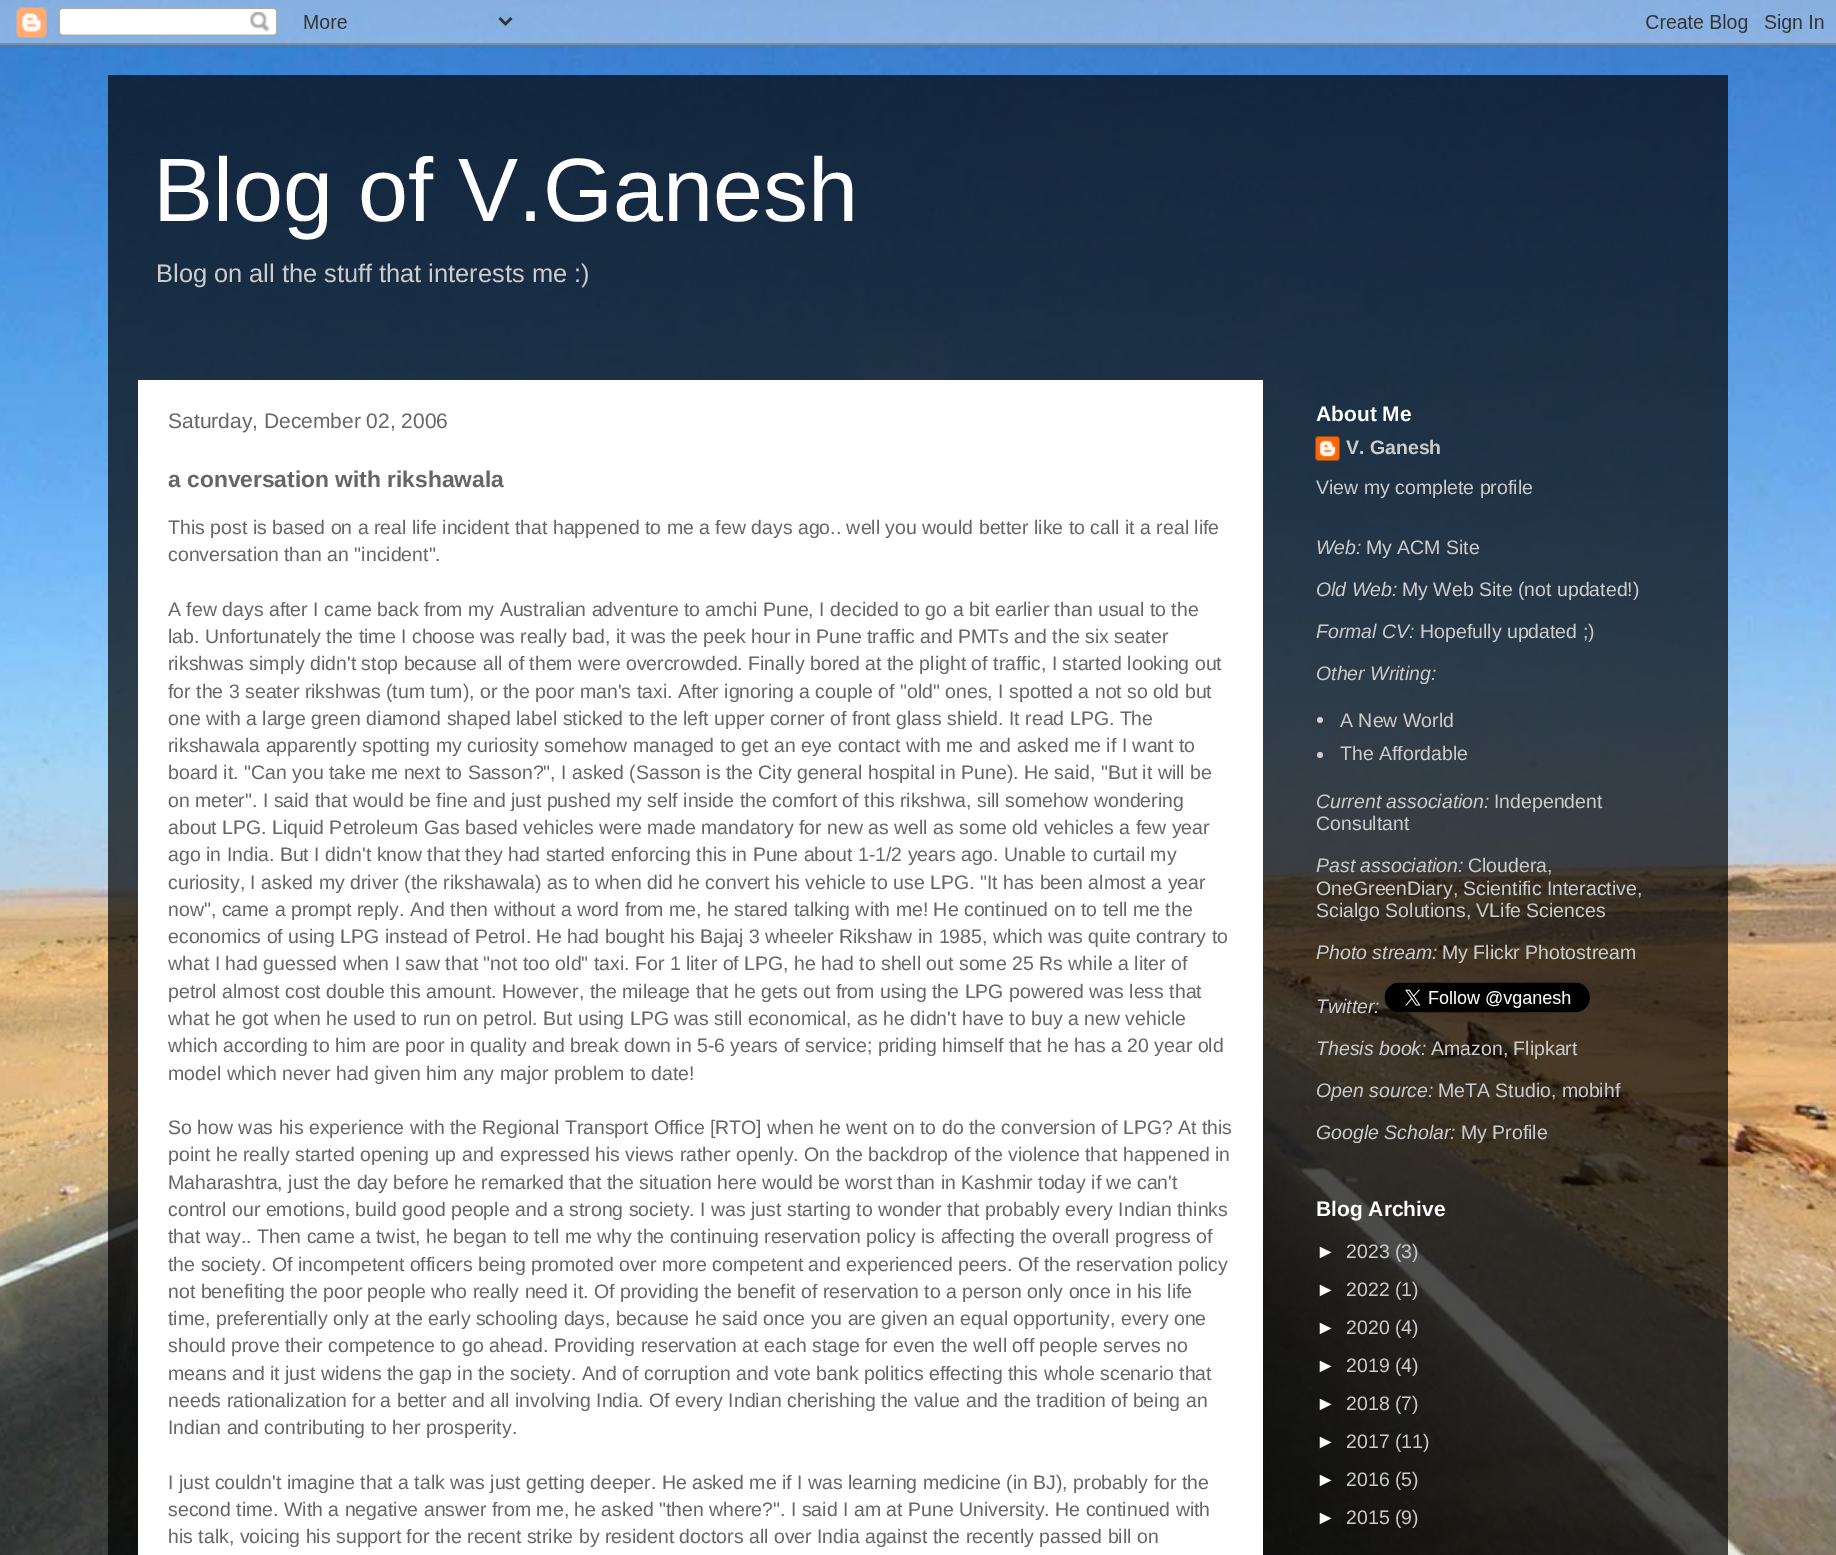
%!PS
<< /PageSize [1836 1555] /PageUsesTransparency true >> setpagedevice
/rgb { 3 { 255 div 3 1 roll } repeat setrgbcolor } def
/font { [ exch dup neg 0 0 3 -1 roll 0 0 ] selectfont } def
/text { moveto show } def
/alpha { dup .setfillconstantalpha .setstrokeconstantalpha } def
/circle { newpath 0 360 arc closepath } def
/picture { 5 dict begin { /h /w /y /x /name } { exch def } forall
  gsave x y translate w h scale
  w h 8 [w 0 0 h 0 0] name (r) file false 3 colorimage grestore end } def
0 .pushpdf14devicefilter
0 1555 translate 1 -1 scale
4 setmiterlimit
255 255 255 rgb
0 0 1836 1555 rectfill
(img_01.rgb) 0 0 1836 1555 picture
(img_02.rgb) 0 0 1836 45 picture
0.7 alpha
0 0 0 rgb
108 75 1620 1480 rectfill
1 alpha
255 255 255 rgb
138 380 1125 1175 rectfill
(img_03.rgb) 1315 436 25 25 picture
204 204 204 rgb
1320 720 3 circle fill
1320 755 3 circle fill
(img_04.rgb) 1384 982 206 31 picture
/LiberationSans-Regular 90 font
255 255 255 rgb
(Blog of V.Ganesh) 153 221 text
/LiberationSans-Regular 25.4 font
204 204 204 rgb
(Blog on all the stuff that interests me :\)) 156 282 text
/LiberationSans-Regular 21 font
102 102 102 rgb
(Saturday, December 02, 2006) 168 428 text
/LiberationSans-Bold 22.8 font
(a conversation with rikshawala) 168 487 text
/LiberationSans-Regular 19.5 font
(This post is based on a real life incident that happened to me a few days ago.. well you would better like to call it a real life) 168 534 text
(conversation than an "incident".) 168 561 text
(A few days after I came back from my Australian adventure to amchi Pune, I decided to go a bit earlier than usual to the) 168 616 text
(lab. Unfortunately the time I choose was really bad, it was the peek hour in Pune traffic and PMTs and the six seater) 168 643 text
(rikshwas simply didn't stop because all of them were overcrowded. Finally bored at the plight of traffic, I started looking out) 168 670 text
(for the 3 seater rikshwas \(tum tum\), or the poor man's taxi. After ignoring a couple of "old" ones, I spotted a not so old but) 168 698 text
(one with a large green diamond shaped label sticked to the left upper corner of front glass shield. It read LPG. The) 168 725 text
(rikshawala apparently spotting my curiosity somehow managed to get an eye contact with me and asked me if I want to) 168 752 text
(board it. "Can you take me next to Sasson?", I asked \(Sasson is the City general hospital in Pune\). He said, "But it will be) 168 779 text
(on meter". I said that would be fine and just pushed my self inside the comfort of this rikshwa, sill somehow wondering) 168 807 text
(about LPG. Liquid Petroleum Gas based vehicles were made mandatory for new as well as some old vehicles a few year) 168 834 text
(ago in India. But I didn't know that they had started enforcing this in Pune about 1-1/2 years ago. Unable to curtail my) 168 861 text
(curiosity, I asked my driver \(the rikshawala\) as to when did he convert his vehicle to use LPG. "It has been almost a year) 168 889 text
(now", came a prompt reply. And then without a word from me, he stared talking with me! He continued on to tell me the) 168 916 text
(economics of using LPG instead of Petrol. He had bought his Bajaj 3 wheeler Rikshaw in 1985, which was quite contrary to) 168 943 text
(what I had guessed when I saw that "not too old" taxi. For 1 liter of LPG, he had to shell out some 25 Rs while a liter of) 168 970 text
(petrol almost cost double this amount. However, the mileage that he gets out from using the LPG powered was less that) 168 998 text
(what he got when he used to run on petrol. But using LPG was still economical, as he didn't have to buy a new vehicle) 168 1025 text
(which according to him are poor in quality and break down in 5-6 years of service; priding himself that he has a 20 year old) 168 1052 text
(model which never had given him any major problem to date!) 168 1080 text
(So how was his experience with the Regional Transport Office [RTO] when he went on to do the conversion of LPG? At this) 168 1134 text
(point he really started opening up and expressed his views rather openly. On the backdrop of the violence that happened in) 168 1161 text
(Maharashtra, just the day before he remarked that the situation here would be worst than in Kashmir today if we can't) 168 1189 text
(control our emotions, build good people and a strong society. I was just starting to wonder that probably every Indian thinks) 168 1216 text
(that way.. Then came a twist, he began to tell me why the continuing reservation policy is affecting the overall progress of) 168 1243 text
(the society. Of incompetent officers being promoted over more competent and experienced peers. Of the reservation policy) 168 1271 text
(not benefiting the poor people who really need it. Of providing the benefit of reservation to a person only once in his life) 168 1298 text
(time, preferentially only at the early schooling days, because he said once you are given an equal opportunity, every one) 168 1325 text
(should prove their competence to go ahead. Providing reservation at each stage for even the well off people serves no) 168 1352 text
(means and it just widens the gap in the society. And of corruption and vote bank politics effecting this whole scenario that) 168 1380 text
(needs rationalization for a better and all involving India. Of every Indian cherishing the value and the tradition of being an) 168 1407 text
(Indian and contributing to her prosperity.) 168 1434 text
(I just couldn't imagine that a talk was just getting deeper. He asked me if I was learning medicine \(in BJ\), probably for the) 168 1489 text
(second time. With a negative answer from me, he asked "then where?". I said I am at Pune University. He continued with) 168 1516 text
(his talk, voicing his support for the recent strike by resident doctors all over India against the recently passed bill on) 168 1543 text
/LiberationSans-Bold 21 font
255 255 255 rgb
(About Me) 1316 421 text
/LiberationSans-Bold 19.5 font
204 204 204 rgb
(V. Ganesh) 1346 454 text
/LiberationSans-Regular 19.5 font
(View my complete profile) 1316 494 text
/LiberationSans-Italic 19.5 font
(Web:) 1316 554 text
/LiberationSans-Regular 19.5 font
(My ACM Site) 1366 554 text
/LiberationSans-Italic 19.5 font
(Old Web:) 1316 596 text
/LiberationSans-Regular 19.5 font
(My Web Site \(not updated!\)) 1402 596 text
/LiberationSans-Italic 19.5 font
(Formal CV:) 1316 638 text
/LiberationSans-Regular 19.5 font
(Hopefully updated ;\)) 1420 638 text
/LiberationSans-Italic 19.5 font
(Other Writing:) 1316 680 text
/LiberationSans-Regular 19.5 font
(A New World) 1340 727 text
(The Affordable) 1340 760 text
/LiberationSans-Italic 19.5 font
(Current association:) 1316 808 text
/LiberationSans-Regular 19.5 font
(Independent) 1494 808 text
(Consultant) 1316 830 text
/LiberationSans-Italic 19.5 font
(Past association:) 1316 872 text
/LiberationSans-Regular 19.5 font
(Cloudera,) 1468 872 text
(OneGreenDiary, Scientific Interactive,) 1316 895 text
(Scialgo Solutions, VLife Sciences) 1316 917 text
/LiberationSans-Italic 19.5 font
(Photo stream:) 1316 959 text
/LiberationSans-Regular 19.5 font
(My Flickr Photostream) 1442 959 text
/LiberationSans-Italic 19.5 font
(Twitter:) 1316 1013 text
(Thesis book:) 1316 1055 text
/LiberationSans-Regular 19.5 font
(Amazon, Flipkart) 1431 1055 text
/LiberationSans-Italic 19.5 font
(Open source:) 1316 1097 text
/LiberationSans-Regular 19.5 font
(MeTA Studio, mobihf) 1438 1097 text
/LiberationSans-Italic 19.5 font
(Google Scholar:) 1316 1139 text
/LiberationSans-Regular 19.5 font
(My Profile) 1461 1139 text
/LiberationSans-Bold 21 font
255 255 255 rgb
(Blog Archive) 1316 1216 text
/LiberationSans-Regular 19.5 font
(►) 1316 1258 text
204 204 204 rgb
(2023 \(3\)) 1346 1258 text
255 255 255 rgb
(►) 1316 1296 text
204 204 204 rgb
(2022 \(1\)) 1346 1296 text
255 255 255 rgb
(►) 1316 1334 text
204 204 204 rgb
(2020 \(4\)) 1346 1334 text
255 255 255 rgb
(►) 1316 1372 text
204 204 204 rgb
(2019 \(4\)) 1346 1372 text
255 255 255 rgb
(►) 1316 1410 text
204 204 204 rgb
(2018 \(7\)) 1346 1410 text
255 255 255 rgb
(►) 1316 1448 text
204 204 204 rgb
(2017 \(11\)) 1346 1448 text
255 255 255 rgb
(►) 1316 1486 text
204 204 204 rgb
(2016 \(5\)) 1346 1486 text
255 255 255 rgb
(►) 1316 1524 text
204 204 204 rgb
(2015 \(9\)) 1346 1524 text
.poppdf14devicefilter showpage
